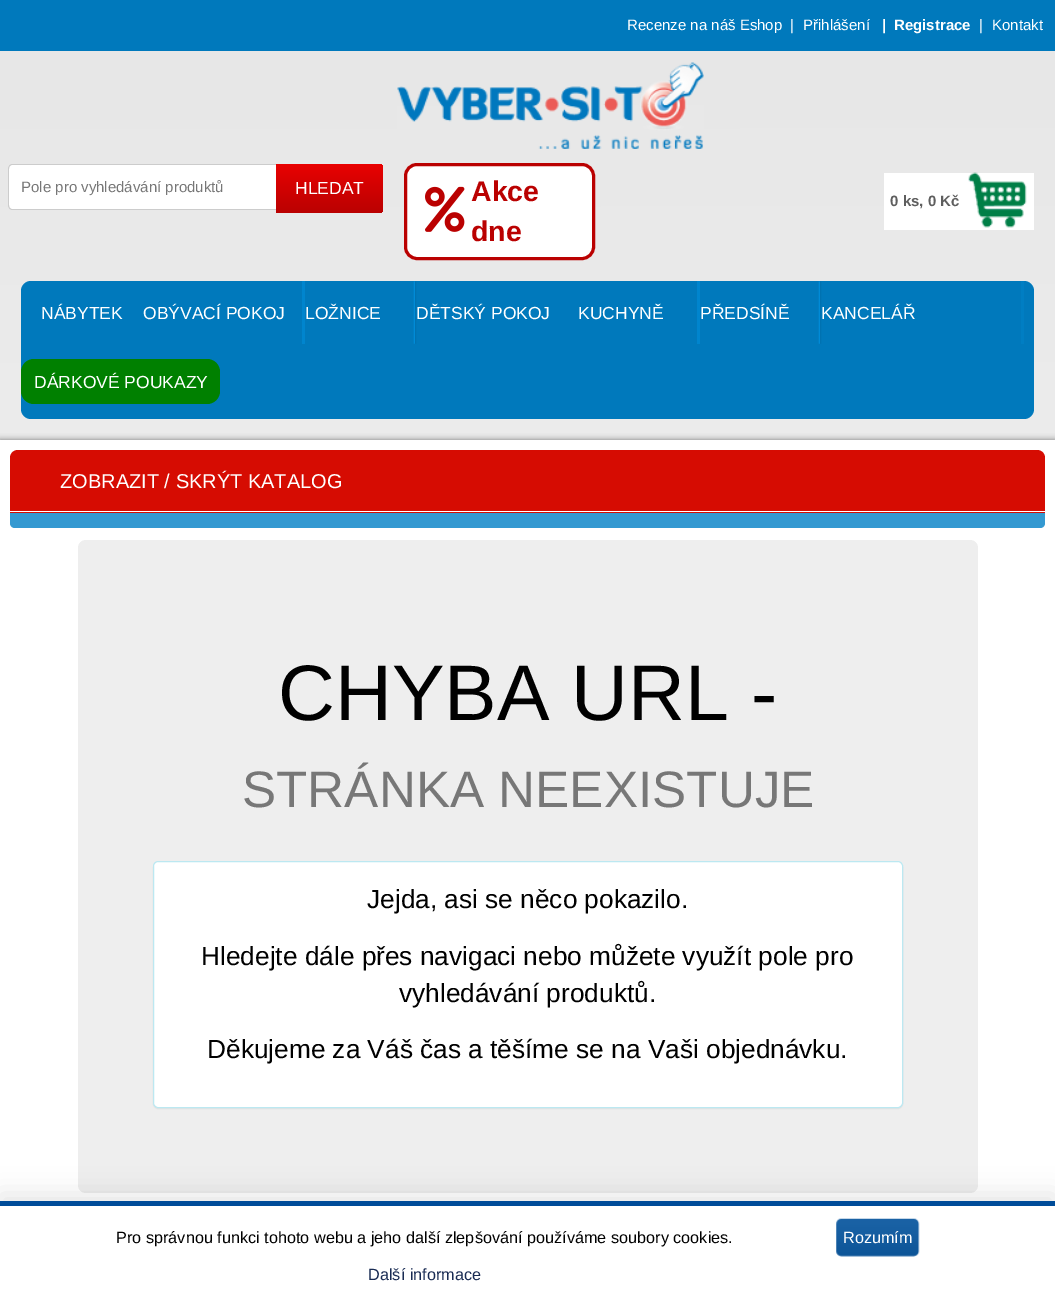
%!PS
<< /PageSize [1055 1293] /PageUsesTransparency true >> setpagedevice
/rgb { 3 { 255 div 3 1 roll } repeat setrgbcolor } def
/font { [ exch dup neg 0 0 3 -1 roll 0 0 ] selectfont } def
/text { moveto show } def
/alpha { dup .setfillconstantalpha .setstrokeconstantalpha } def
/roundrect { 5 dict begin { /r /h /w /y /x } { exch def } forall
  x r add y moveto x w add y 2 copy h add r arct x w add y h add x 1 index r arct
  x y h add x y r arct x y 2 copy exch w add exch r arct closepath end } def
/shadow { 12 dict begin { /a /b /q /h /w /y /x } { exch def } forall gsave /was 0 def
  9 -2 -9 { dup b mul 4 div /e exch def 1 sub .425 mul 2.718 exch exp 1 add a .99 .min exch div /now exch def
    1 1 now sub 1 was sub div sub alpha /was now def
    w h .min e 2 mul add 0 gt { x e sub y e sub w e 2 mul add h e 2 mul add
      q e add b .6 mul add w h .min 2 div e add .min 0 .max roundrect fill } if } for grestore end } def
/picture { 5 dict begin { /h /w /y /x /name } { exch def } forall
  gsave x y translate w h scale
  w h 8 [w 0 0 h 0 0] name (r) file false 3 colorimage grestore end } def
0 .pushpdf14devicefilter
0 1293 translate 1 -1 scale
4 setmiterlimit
255 255 255 rgb
0 0 1055 1293 rectfill
gsave 0 51 moveto 1055 0 rlineto 0 389 rlineto -1055 0 rlineto closepath clip newpath
<< /ShadingType 2 /ColorSpace /DeviceRGB /Coords [527 0 528 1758] /Extend [true true] /Function << /FunctionType 2 /Domain [0 1] /C0 [0.902 0.902 0.902] /C1 [1 1 1] /N 1 >> >> shfill grestore
0 121 188 rgb
0 0 1055 51 rectfill
(img_01.rgb) 397 62 307 87 picture
255 255 255 rgb
13 164 moveto 263 0 rlineto 0 46 rlineto -263 0 rlineto -3 0 -5 -2 -5 -5 rcurveto 0 -36 rlineto 0 -3 2 -5 5 -5 rcurveto closepath fill
204 204 204 rgb
12 164 moveto 264 0 rlineto 0 46 rlineto -264 0 rlineto -2 0 -4 -2 -4 -5 rcurveto 0 -36 rlineto 0 -3 2 -5 4 -5 rcurveto closepath 12 165 moveto 264 0 rlineto 0 44 rlineto -264 0 rlineto -2 0 -3 -2 -3 -4 rcurveto 0 -36 rlineto 0 -2 1 -4 3 -4 rcurveto closepath eofill
gsave 276 164 moveto 102 0 rlineto 3 0 5 2 5 5 rcurveto 0 39 rlineto 0 3 -2 5 -5 5 rcurveto -102 0 rlineto closepath clip newpath
<< /ShadingType 2 /ColorSpace /DeviceRGB /Coords [329 164 329 213] /Extend [true true] /Function << /FunctionType 3 /Domain [0 1] /Functions [<< /FunctionType 2 /Domain [0 1] /C0 [0.91 0.004 0.004] /C1 [0.91 0.004 0.004] /N 1 >> << /FunctionType 2 /Domain [0 1] /C0 [0.91 0.004 0.004] /C1 [0.729 0.004 0.004] /N 1 >>] /Bounds [0.01] /Encode [0 1 0 1] >> >> shfill grestore
255 255 255 rgb
405.5 164.5 188 94 11.5 roundrect gsave fill grestore
186 1 1 rgb
3 setlinewidth
stroke
(img_02.rgb) 425 186 40 46 picture
255 255 255 rgb
884 173 150 57 rectfill
(img_03.rgb) 968 172 59 56 picture
0 121 188 rgb
21 281 1013 138 10 roundrect fill
0 133 206 rgb
302 281 3 63 rectfill
(img_04.rgb) 413 281 4 63 picture
697 281 3 63 rectfill
(img_04.rgb) 818 281 4 63 picture
0 126 195 rgb
1021 281 3 63 rectfill
0 128 0 rgb
21 359 199 45 13 roundrect fill
0 0 0 rgb
0 440 1055 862 0 3 0.5 shadow
255 255 255 rgb
0 440 1055 761 rectfill
214 12 2 rgb
18 450 moveto 1019 0 rlineto 4.5 0 8 3.5 8 8 rcurveto 0 55 rlineto -1035 0 rlineto 0 -55 rlineto 0 -4.5 3.5 -8 8 -8 rcurveto closepath fill
255 255 255 rgb
10 511 1035 1 rectfill
52 153 209 rgb
10 513 moveto 1035 0 rlineto 0 10 rlineto 0 3 -2 5 -5 5 rcurveto -1025 0 rlineto -3 0 -5 -2 -5 -5 rcurveto closepath fill
238 238 238 rgb
78 540 900 653 8 roundrect fill
0 0 0 rgb
153 863 750 246 5 0.5 0.05 shadow
255 255 255 rgb
153.5 861.5 749 246 4.5 roundrect gsave fill grestore
188 232 241 rgb
1 setlinewidth
stroke
0 0 0 rgb
0 1194 1055 92 0 12.5 0.1 shadow
255 255 255 rgb
0 1206 1055 87 rectfill
0 76 153 rgb
0 1201 1055 5 rectfill
(img_05.rgb) 836 1218 84 39 picture
/LiberationSans-Regular 15 font
255 255 255 rgb
(Recenze na náš Eshop) 627 30 text
(|) 790 30 text
(Přihlášení) 803 30 text
/LiberationSans-Bold 15 font
(|) 882 30 text
(Registrace) 894 30 text
/LiberationSans-Regular 15 font
(|) 979 30 text
(Kontakt) 992 30 text
119 119 119 rgb
(Pole pro vyhledávání produktů) 21 192 text
/LiberationSans-Regular 17.5 font
255 255 255 rgb
(HLEDAT) 295 194 text
/LiberationSans-Bold 28.5 font
186 1 1 rgb
(Akce) 471 201 text
(dne) 471 241 text
/LiberationSans-Bold 15 font
94 94 94 rgb
(0 ks, 0 Kč) 890 206 text
/LiberationSans-Regular 17.5 font
255 255 255 rgb
(NÁBYTEK) 41 319 text
(OBÝVACÍ POKOJ) 143 319 text
(LOŽNICE) 305 319 text
(DĚTSKÝ POKOJ) 416 319 text
(KUCHYNĚ) 578 319 text
(PŘEDSÍNĚ) 700 319 text
(KANCELÁŘ) 821 319 text
(DÁRKOVÉ POUKAZY) 34 388 text
/LiberationSans-Regular 20 font
(ZOBRAZIT / SKRÝT KATALOG) 60 488 text
/LiberationSans-Regular 78.75 font
0 0 0 rgb
(CHYBA URL -) 278 720 text
/LiberationSans-Regular 51.25 font
119 119 119 rgb
(STRÁNKA NEEXISTUJE) 242 807 text
/LiberationSans-Regular 26.25 font
0 0 0 rgb
(Jejda, asi se něco pokazilo.) 367 908 text
(Hledejte dále přes navigaci nebo můžete využít pole pro) 201 965 text
(vyhledávání produktů.) 399 1002 text
(Děkujeme za Váš čas a těšíme se na Vaši objednávku.) 207 1058 text
/LiberationSans-Regular 16.25 font
(Pro správnou funkci tohoto webu a jeho další zlepšování používáme soubory cookies.) 116 1243 text
25 43 83 rgb
(Další informace) 368 1280 text
255 255 255 rgb
(Rozumím) 843 1243 text
.poppdf14devicefilter showpage
